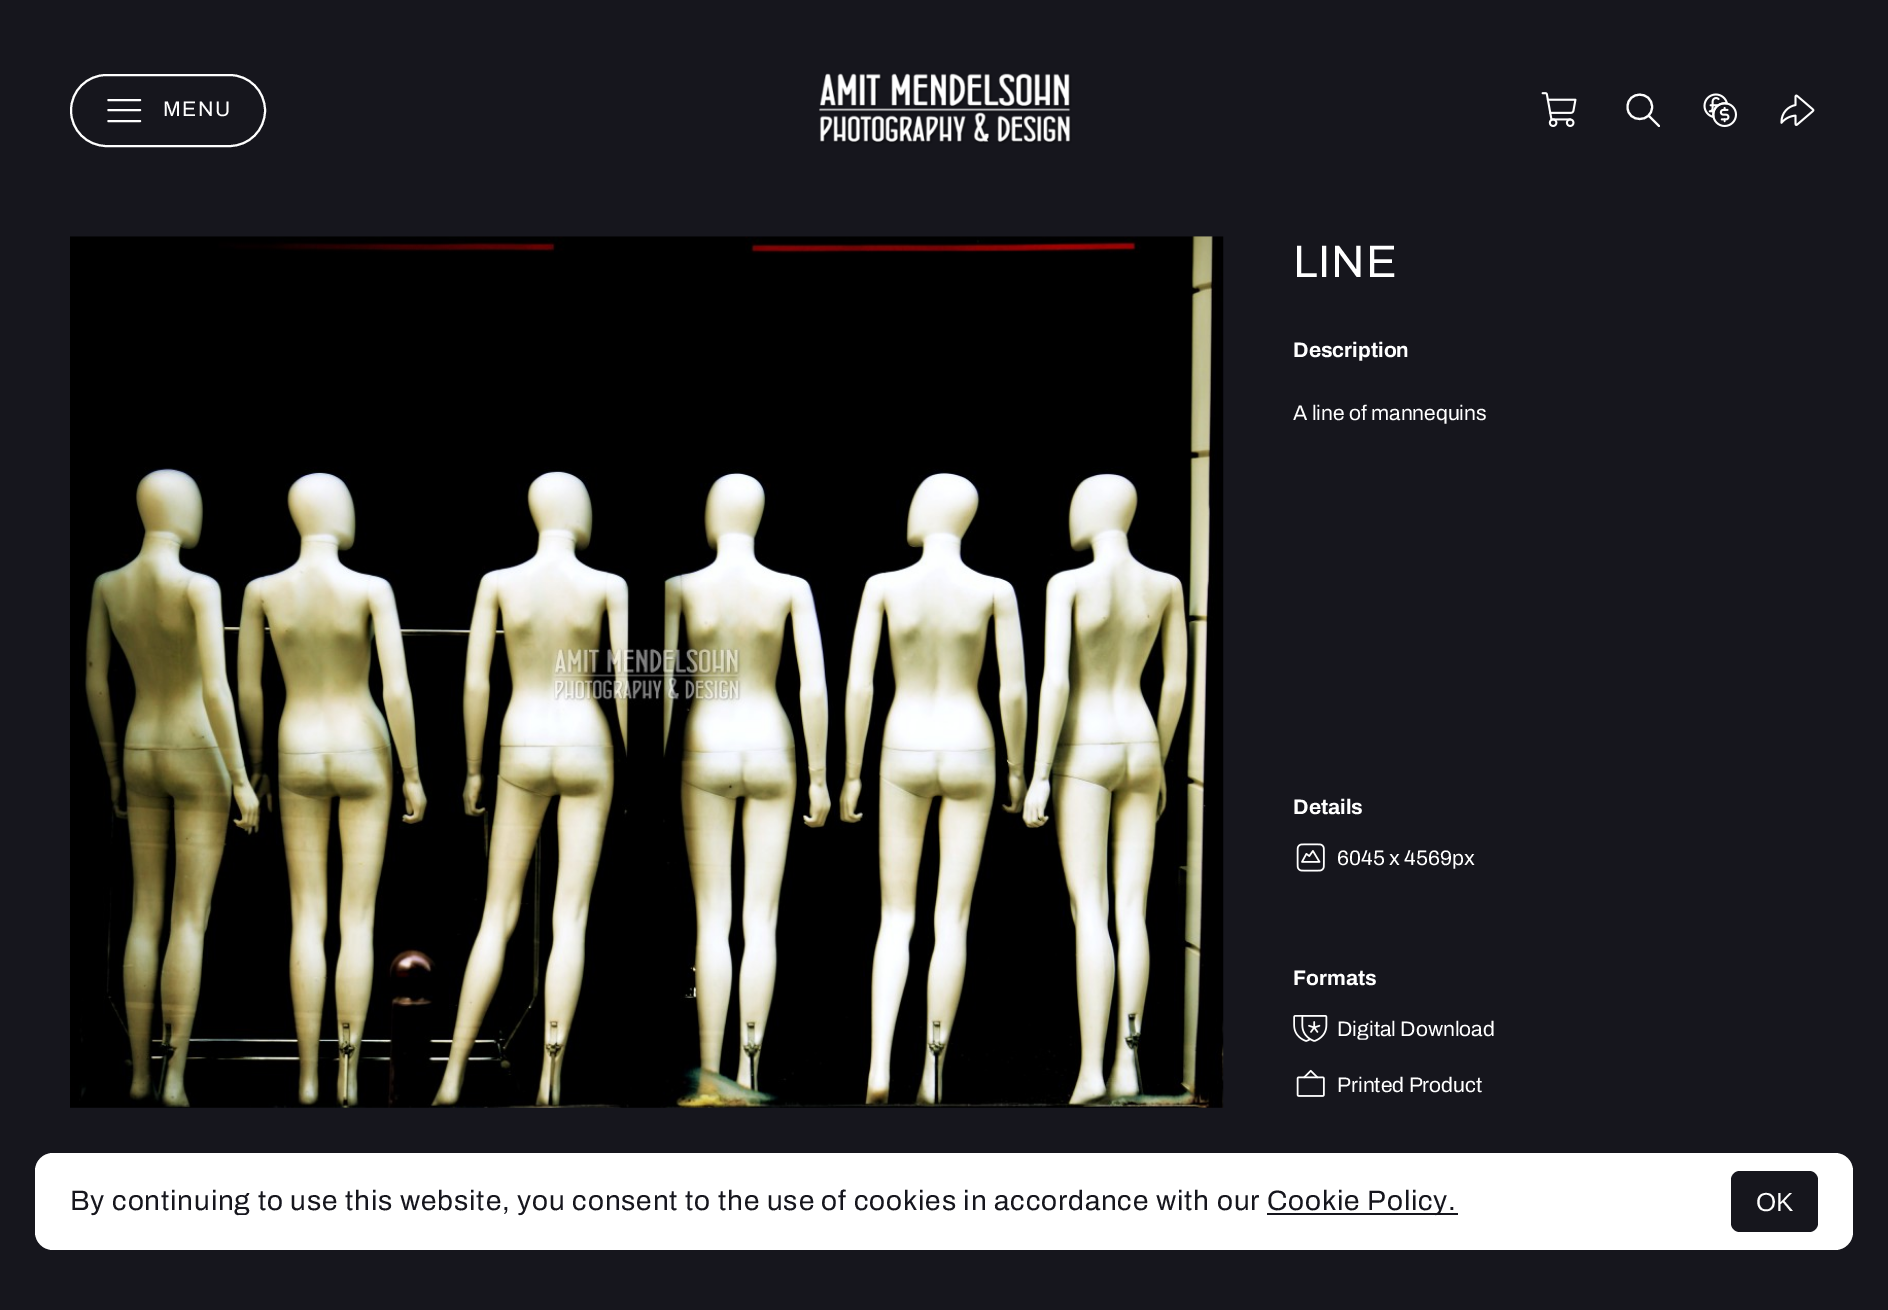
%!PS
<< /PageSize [1888 1310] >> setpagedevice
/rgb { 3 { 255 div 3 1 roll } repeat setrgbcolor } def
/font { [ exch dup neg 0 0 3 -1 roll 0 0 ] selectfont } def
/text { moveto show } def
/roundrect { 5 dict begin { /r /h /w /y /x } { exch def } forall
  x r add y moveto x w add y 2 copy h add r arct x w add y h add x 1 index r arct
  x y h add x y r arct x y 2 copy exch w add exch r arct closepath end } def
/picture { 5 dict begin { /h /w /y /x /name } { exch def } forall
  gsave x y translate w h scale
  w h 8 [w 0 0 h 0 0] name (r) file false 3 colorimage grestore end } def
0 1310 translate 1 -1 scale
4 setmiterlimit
22 22 29 rgb
0 0 1888 1310 rectfill
255 255 255 rgb
2 setlinewidth
71 75 194 71 35.5 roundrect stroke
2.1 setlinewidth
1 setlinecap
1 setlinejoin
108.5 110 moveto 31.5 0 rlineto 108.5 100 moveto 31.5 0 rlineto 108.5 121 moveto 31.5 0 rlineto stroke
(img_01.rgb) 819 73 253 71 picture
(img_02.rgb) 1541 92 36 35 picture
1659 126 moveto -10.5 -10.5 rlineto 1652 107 moveto 0 16 -24.5 16 -24.5 0 rcurveto 0 -16.5 24.5 -16.5 24.5 0 rcurveto closepath stroke
(img_03.rgb) 1703 93 35 35 picture
(img_04.rgb) 1780 94 35 32 picture
(img_05.rgb) 70 236 1154 872 picture
(img_06.rgb) 1296 843 29 29 picture
(img_07.rgb) 1293 1015 35 27 picture
(img_08.rgb) 1296 1069 29 28 picture
35 1153 1818 97 18 roundrect fill
22 22 29 rgb
1267 1213 191 2 rectfill
1731 1171 87 61 9 roundrect fill
/Archivo-Regular 21 font
255 255 255 rgb
163 116 moveto 1.5 0 (MENU) ashow
/Archivo-Regular 45.5 font
1293 277 moveto 0.88 0 (LINE) ashow
/Archivo-Bold 21 font
(Description) 1293 357 text
/Archivo-Regular 21 font
(A line of mannequins) 1293 420 text
/Archivo-Bold 21 font
(Details) 1293 814 text
/Archivo-Regular 21 font
(6045 x 4569px) 1337 865 text
/Archivo-Bold 21 font
(Formats) 1293 985 text
/Archivo-Regular 21 font
(Digital Download) 1337 1036 text
(Printed Product) 1337 1092 text
/Archivo-Regular 28 font
22 22 29 rgb
70 1210 moveto 0.88 0 (By continuing to use this website, you consent to the use of cookies in accordance with our) ashow
1267 1210 moveto 0.88 0 (Cookie Policy.) ashow
/LiberationSans-Regular 26 font
255 255 255 rgb
(OK) 1756 1211 text
showpage
